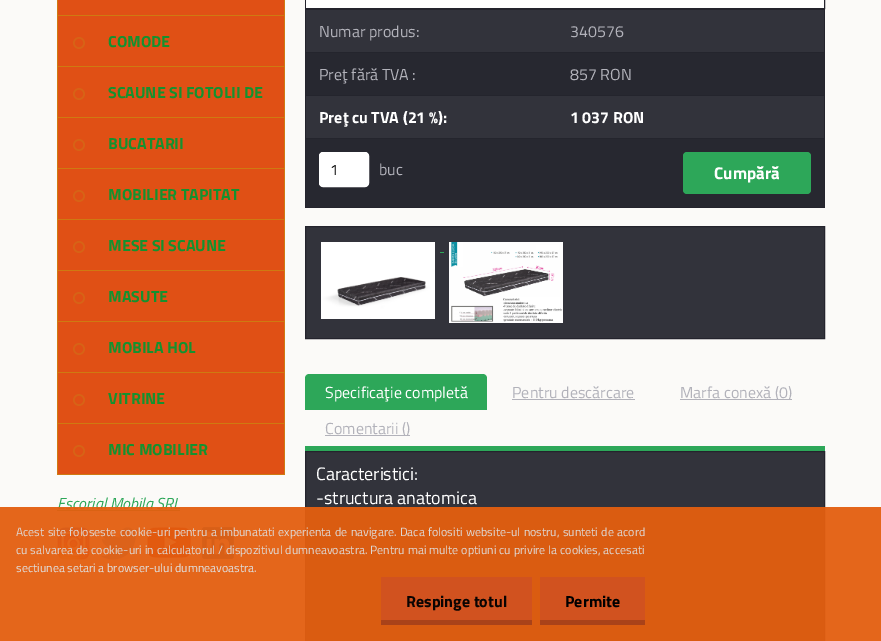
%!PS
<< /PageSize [881 641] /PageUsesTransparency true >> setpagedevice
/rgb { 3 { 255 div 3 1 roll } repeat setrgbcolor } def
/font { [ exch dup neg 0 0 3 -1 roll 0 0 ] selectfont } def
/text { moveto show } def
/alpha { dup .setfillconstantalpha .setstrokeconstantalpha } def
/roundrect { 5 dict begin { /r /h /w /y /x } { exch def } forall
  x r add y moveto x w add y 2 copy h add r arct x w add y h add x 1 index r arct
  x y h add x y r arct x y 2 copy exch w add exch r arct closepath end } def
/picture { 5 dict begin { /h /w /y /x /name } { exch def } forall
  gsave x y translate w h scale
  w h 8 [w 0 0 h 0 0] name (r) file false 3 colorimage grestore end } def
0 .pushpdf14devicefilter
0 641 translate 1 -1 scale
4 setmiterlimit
251 250 248 rgb
0 0 881 641 rectfill
224 80 21 rgb
58 0 226 15 rectfill
207 122 17 rgb
284 0 1 475 rectfill
57 15 228 1 rectfill
57 0 1 16 rectfill
224 80 21 rgb
58 16 226 50 rectfill
207 122 17 rgb
57 66 228 1 rectfill
57 16 1 51 rectfill
(img_01.rgb) 73 37 12 12 picture
224 80 21 rgb
58 67 226 50 rectfill
207 122 17 rgb
57 117 228 1 rectfill
57 67 1 51 rectfill
(img_01.rgb) 73 88 12 12 picture
224 80 21 rgb
58 118 226 50 rectfill
207 122 17 rgb
57 168 228 1 rectfill
57 118 1 51 rectfill
(img_01.rgb) 73 139 12 12 picture
224 80 21 rgb
58 169 226 50 rectfill
207 122 17 rgb
57 219 228 1 rectfill
57 169 1 51 rectfill
(img_01.rgb) 73 190 12 12 picture
224 80 21 rgb
58 220 226 50 rectfill
207 122 17 rgb
57 270 228 1 rectfill
57 220 1 51 rectfill
(img_01.rgb) 73 241 12 12 picture
224 80 21 rgb
58 271 226 50 rectfill
207 122 17 rgb
57 321 228 1 rectfill
57 271 1 51 rectfill
(img_01.rgb) 73 292 12 12 picture
224 80 21 rgb
58 322 226 50 rectfill
207 122 17 rgb
57 372 228 1 rectfill
57 322 1 51 rectfill
(img_01.rgb) 73 343 12 12 picture
224 80 21 rgb
58 373 226 50 rectfill
207 122 17 rgb
57 423 228 1 rectfill
57 373 1 51 rectfill
(img_01.rgb) 73 394 12 12 picture
224 80 21 rgb
58 424 226 50 rectfill
207 122 17 rgb
57 474 228 1 rectfill
57 424 1 51 rectfill
(img_01.rgb) 73 445 12 12 picture
45 167 89 rgb
57 510 123 1 rectfill
(img_02.rgb) 57 527 33 33 picture
(img_03.rgb) 100 527 40 33 picture
(img_04.rgb) 147 527 44 31 picture
(img_05.rgb) 202 527 32 32 picture
255 255 255 rgb
57 620 220 21 rectfill
277 636 2 5 rectfill
36 36 45 rgb
305.5 -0.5 519 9 rectstroke
255 255 255 rgb
306 0 518 8 rectfill
36 36 45 rgb
305 9 520 1 rectfill
824 9 1 199 rectfill
305 207 520 1 rectfill
305 9 1 199 rectfill
50 51 59 rgb
306 10 518 42 rectfill
36 37 45 rgb
305 52 520 1 rectfill
39 40 48 rgb
306 53 518 42 rectfill
50 51 59 rgb
306 96 518 42 rectfill
36 37 45 rgb
305 95 520 1 rectfill
305 138 520 1 rectfill
39 40 48 rgb
306 139 518 68 rectfill
255 255 255 rgb
319.5 152.5 49 34 3.5 roundrect gsave fill grestore
stroke
45 167 89 rgb
683 152 128 42 4 roundrect fill
50 51 59 rgb
305.5 226.5 moveto 519 0 rlineto 0 112 rlineto -519 0 rlineto closepath gsave fill grestore
36 36 45 rgb
stroke
(img_06.rgb) 321 242 114 77 picture
45 167 89 rgb
440 252 4 1 rectfill
(img_07.rgb) 449 242 114 81 picture
305 446 520 5 rectfill
309 374 moveto 174 0 rlineto 2 0 4 2 4 4 rcurveto 0 32 rlineto -182 0 rlineto 0 -32 rlineto 0 -2 2 -4 4 -4 rcurveto closepath fill
178 178 186 rgb
512 399 123 1 rectfill
680 399 112 1 rectfill
325 435 85 1 rectfill
50 51 59 rgb
305.5 451.5 moveto 519 0 rlineto 0 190 rlineto -519 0 rlineto closepath gsave fill grestore
36 36 45 rgb
stroke
/TitilliumWeb-Bold 16 font
21 145 47 rgb
(COMODE) 108 47 text
(SCAUNE SI FOTOLII DE) 108 98 text
(BUCATARII) 108 149 text
(MOBILIER TAPITAT) 108 200 text
(MESE SI SCAUNE) 108 251 text
(MASUTE) 108 302 text
(MOBILA HOL) 108 353 text
(VITRINE) 108 404 text
(MIC MOBILIER) 108 455 text
/TitilliumWeb-Italic 16 font
45 167 89 rgb
(Escorial Mobila SRL) 57 509 text
/TitilliumWeb-Regular 16 font
178 178 186 rgb
(Numar produs:) 319 37 text
(340576) 570 37 text
(Preţ fără TVA :) 319 80 text
(857 RON) 570 80 text
/TitilliumWeb-Bold 16 font
255 255 255 rgb
(Preţ cu TVA \(21 %\):) 319 123 text
(1 037 RON) 570 123 text
/TitilliumWeb-Regular 15 font
0 0 0 rgb
(1) 330 175 text
/TitilliumWeb-Regular 16 font
178 178 186 rgb
(buc) 379 175 text
/TitilliumWeb-Bold 17 font
255 255 255 rgb
(Cumpără) 714 179 text
/TitilliumWeb-Regular 16 font
(Specificaţie completă) 325 398 text
178 178 186 rgb
(Pentru descărcare) 512 398 text
(Marfa conexă \(0\)) 680 398 text
(Comentarii \(\)) 325 434 text
/TitilliumWeb-Regular 18 font
255 255 255 rgb
(Caracteristici:) 316 480 text
(-structura anatomica) 316 504 text
0.95 alpha
227 94 15 rgb
0 507 881 134 rectfill
/TitilliumWeb-Regular 12 font
1 alpha
222 216 212 rgb
16 536 moveto 0.7 0 32 (Acest site foloseste cookie-uri pentru a imbunatati experienta de navigare. Daca folositi website-ul nostru, sunteti de acord) widthshow
16 554 moveto 0.25 0 32 (cu salvarea de cookie-uri in calculatorul / dispozitivul dumneavoastra. Pentru mai multe optiuni cu privire la cookies, accesati) widthshow
223 223 223 rgb
(sectiunea setari a browser-ului dumneavoastra.) 16 572 text
0.95 alpha
208 81 32 rgb
381 577 151 43 rectfill
1 alpha
169 66 25 rgb
381 620 151 5 rectfill
/TitilliumWeb-Bold 16 font
10 4 2 rgb
(Respinge totul) 406 607 text
0.95 alpha
208 81 32 rgb
540 577 105 43 rectfill
1 alpha
169 66 25 rgb
540 620 105 5 rectfill
0 0 0 rgb
(Permite) 565 607 text
.poppdf14devicefilter showpage
